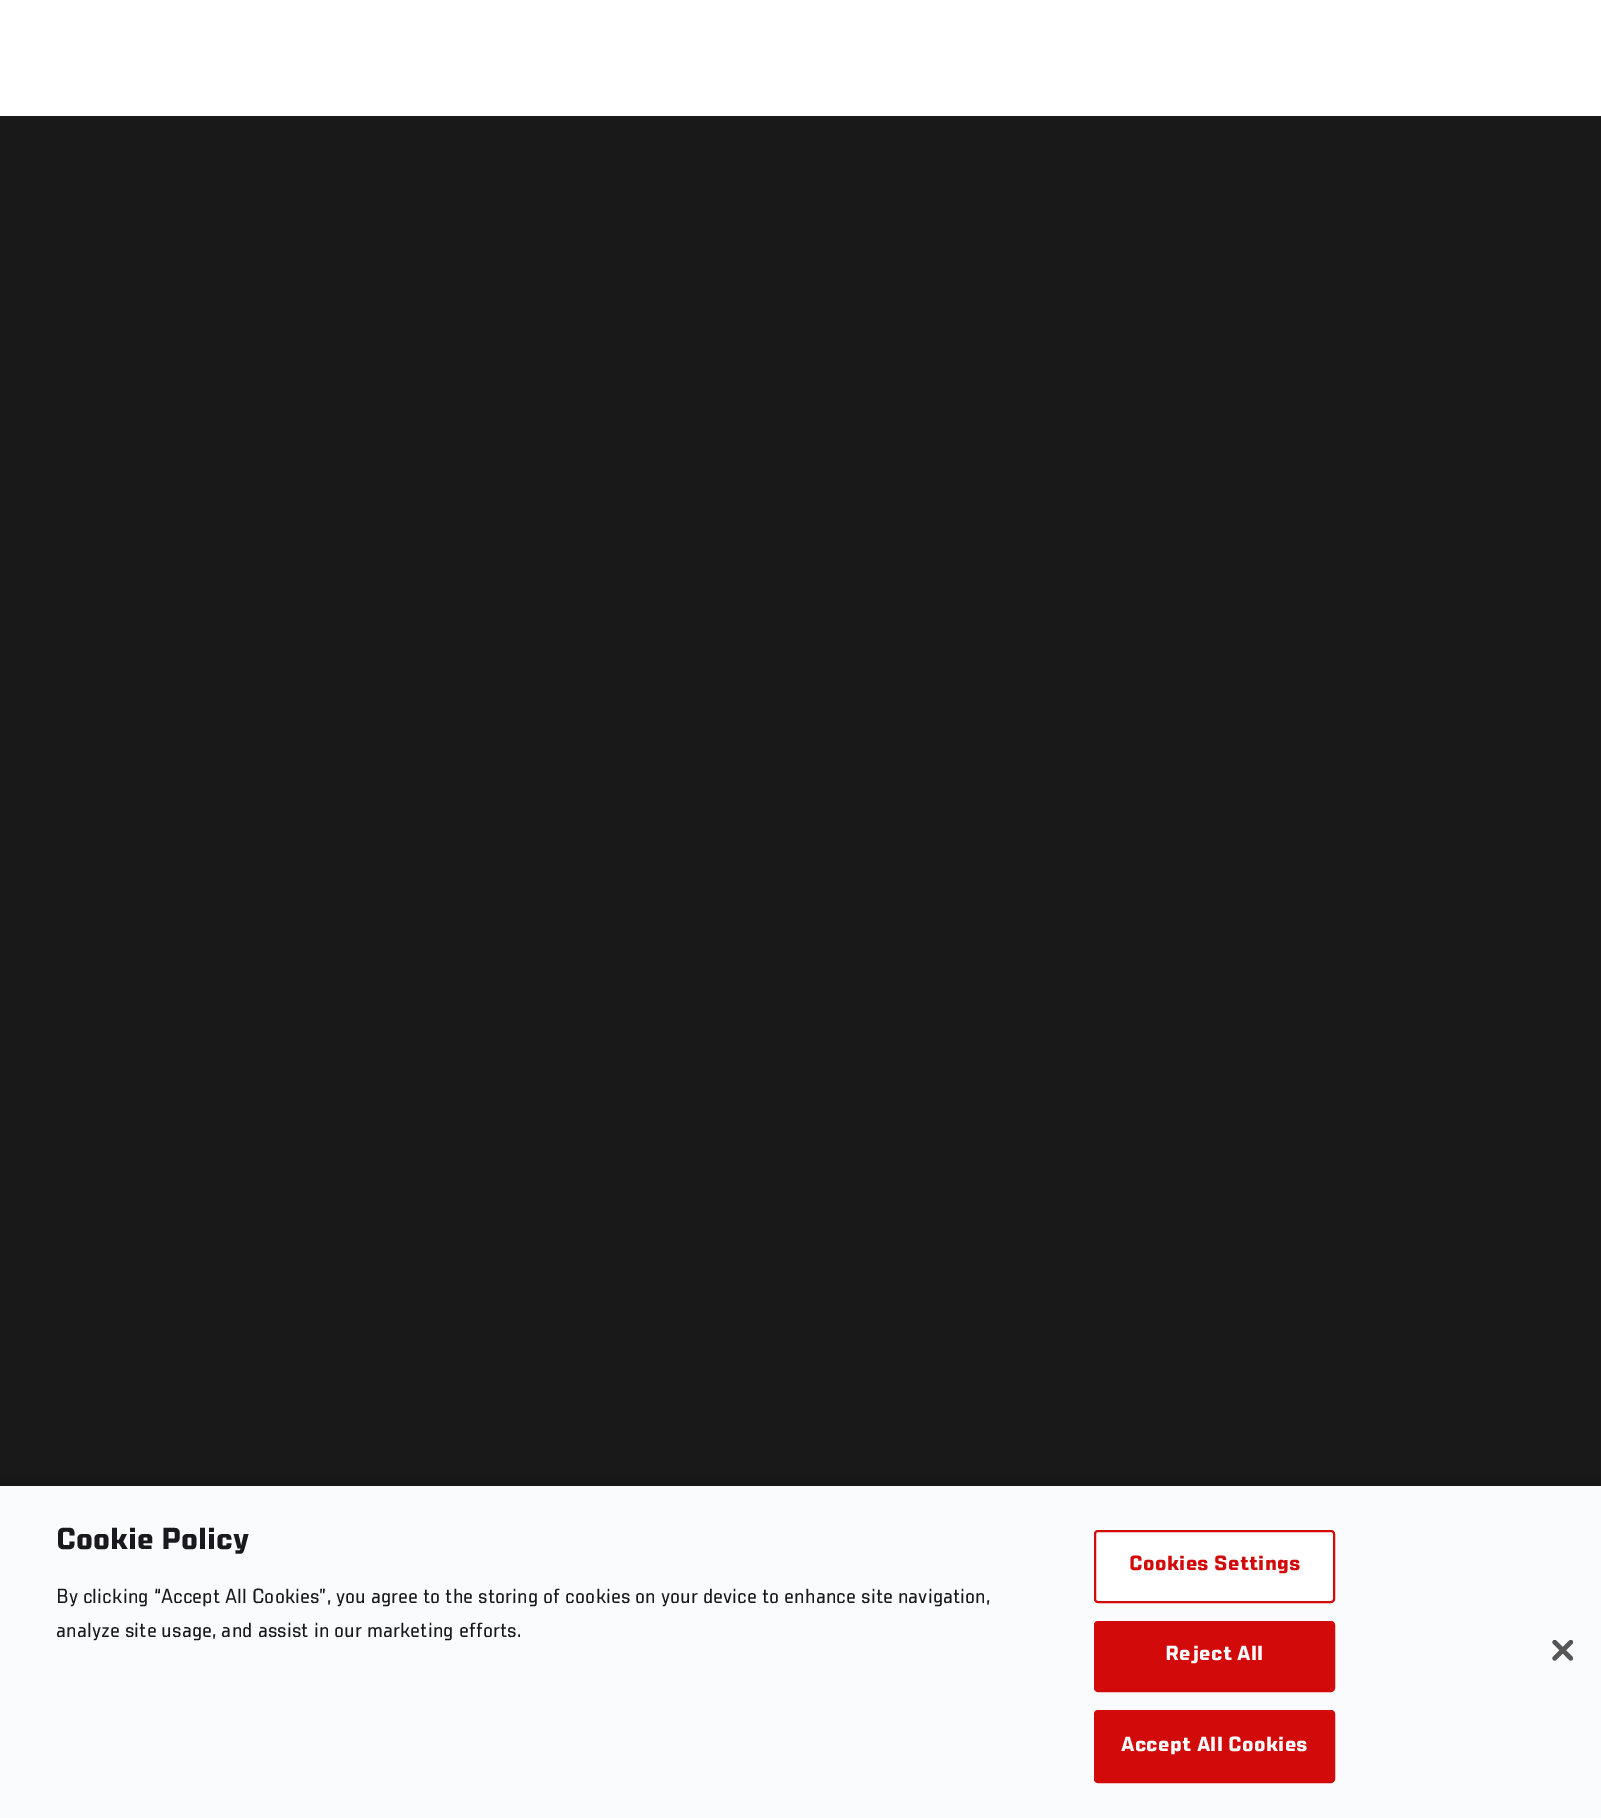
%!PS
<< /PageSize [1601 1818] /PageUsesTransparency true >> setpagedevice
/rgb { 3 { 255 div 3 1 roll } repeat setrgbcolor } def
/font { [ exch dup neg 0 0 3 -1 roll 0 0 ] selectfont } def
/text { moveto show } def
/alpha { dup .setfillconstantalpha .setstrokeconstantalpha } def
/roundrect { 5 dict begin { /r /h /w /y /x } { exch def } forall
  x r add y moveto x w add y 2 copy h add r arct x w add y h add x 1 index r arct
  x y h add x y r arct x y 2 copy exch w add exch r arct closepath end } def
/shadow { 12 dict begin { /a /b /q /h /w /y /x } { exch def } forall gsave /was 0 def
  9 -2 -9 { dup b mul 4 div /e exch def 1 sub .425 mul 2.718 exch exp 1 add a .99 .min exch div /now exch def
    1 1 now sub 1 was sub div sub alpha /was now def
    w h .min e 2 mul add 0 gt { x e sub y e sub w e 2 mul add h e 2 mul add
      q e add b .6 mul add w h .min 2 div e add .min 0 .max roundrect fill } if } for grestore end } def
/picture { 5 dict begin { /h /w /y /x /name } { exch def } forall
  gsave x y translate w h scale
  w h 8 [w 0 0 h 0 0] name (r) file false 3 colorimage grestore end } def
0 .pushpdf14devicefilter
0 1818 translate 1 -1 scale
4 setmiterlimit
255 255 255 rgb
0 0 1601 1818 rectfill
25 25 25 rgb
0 116 1601 1370 rectfill
0 0 0 rgb
0 1486 1601 332 0 16 0.2 shadow
250 251 253 rgb
0 1486 1601 332 rectfill
255 255 255 rgb
1095 1531 239 71 3 roundrect gsave fill grestore
210 10 10 rgb
2 setlinewidth
stroke
1095 1622 239 69 3 roundrect gsave fill grestore
stroke
1095 1711 239 71 3 roundrect gsave fill grestore
stroke
(img_01.rgb) 1552 1640 21 21 picture
/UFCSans-Bold 33.5 font
25 25 30 rgb
(Cookie Policy) 56 1549 text
/UFCSans-Regular 22.75 font
(By clicking “Accept All Cookies”, you agree to the storing of cookies on your device to enhance site navigation,) 56 1603 text
(analyze site usage, and assist in our marketing efforts.) 56 1637 text
/UFCSans-Bold 22.75 font
210 10 10 rgb
1129 1570 moveto 0.25 0 (Cookies Settings) ashow
250 251 253 rgb
1165 1660 moveto 0.25 0 (Reject All) ashow
1121 1751 moveto 0.25 0 (Accept All Cookies) ashow
.poppdf14devicefilter showpage
